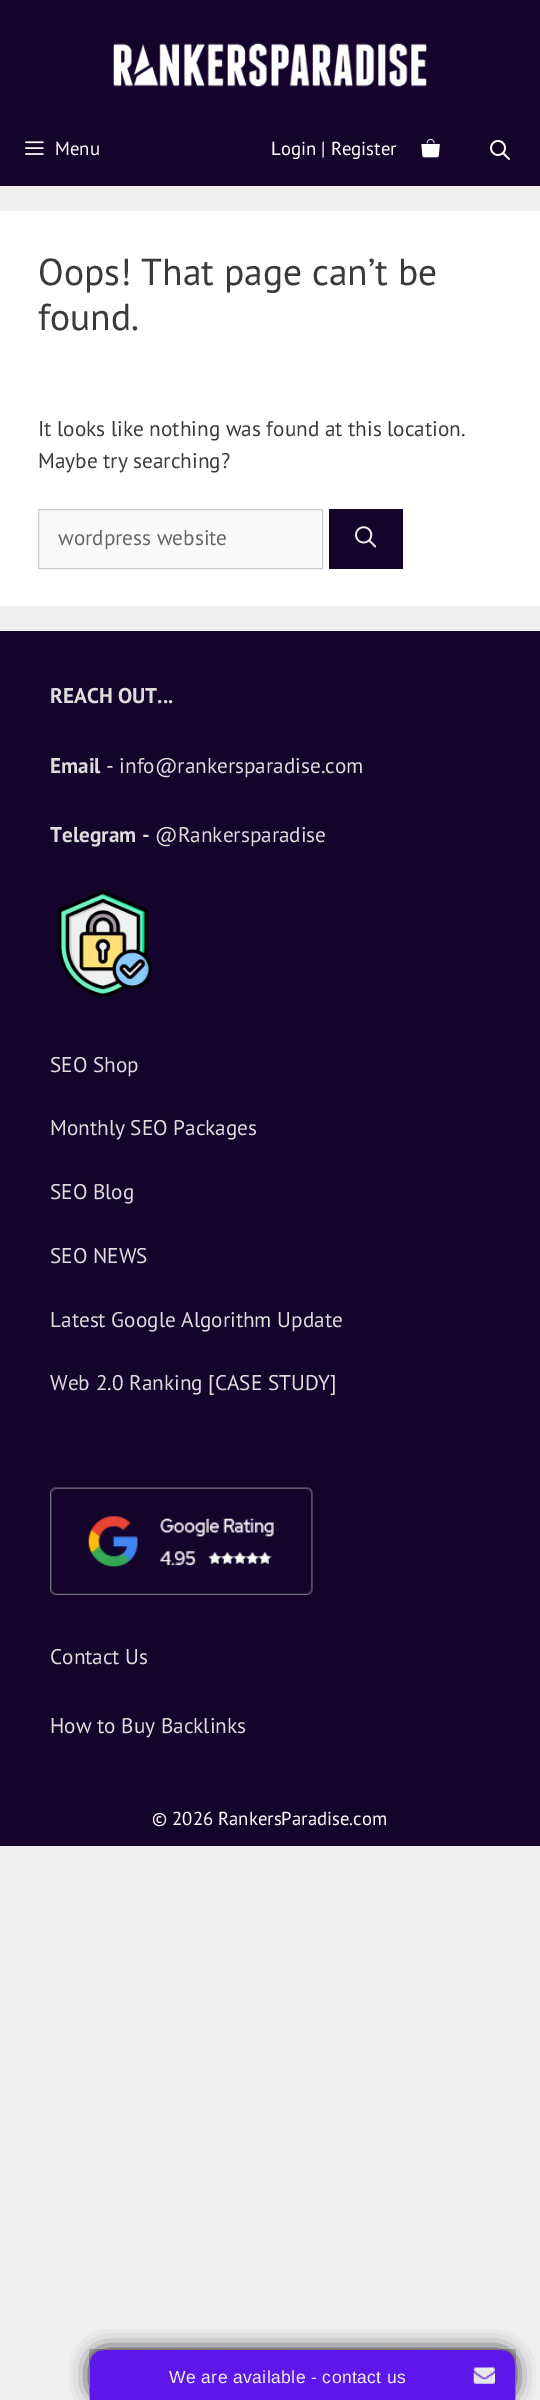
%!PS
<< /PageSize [540 2400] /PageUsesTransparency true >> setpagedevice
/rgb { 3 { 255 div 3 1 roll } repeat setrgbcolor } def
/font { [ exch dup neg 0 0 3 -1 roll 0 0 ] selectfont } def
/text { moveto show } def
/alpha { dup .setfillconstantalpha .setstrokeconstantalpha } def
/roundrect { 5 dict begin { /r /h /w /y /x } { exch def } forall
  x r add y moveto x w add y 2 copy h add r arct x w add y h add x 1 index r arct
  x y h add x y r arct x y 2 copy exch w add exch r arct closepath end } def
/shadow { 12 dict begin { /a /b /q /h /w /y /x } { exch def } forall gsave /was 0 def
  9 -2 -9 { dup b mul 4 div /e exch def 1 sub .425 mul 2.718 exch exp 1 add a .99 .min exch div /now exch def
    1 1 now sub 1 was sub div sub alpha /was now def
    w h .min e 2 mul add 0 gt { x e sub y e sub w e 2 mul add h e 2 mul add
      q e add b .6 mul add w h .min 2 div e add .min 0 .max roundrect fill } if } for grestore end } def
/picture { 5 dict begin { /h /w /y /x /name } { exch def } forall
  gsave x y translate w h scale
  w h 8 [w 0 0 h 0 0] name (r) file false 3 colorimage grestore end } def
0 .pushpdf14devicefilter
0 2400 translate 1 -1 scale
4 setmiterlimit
239 239 239 rgb
0 0 540 2400 rectfill
20 4 44 rgb
0 0 540 25 rectfill
0 25 540 161 rectfill
(img_01.rgb) 113 43 314 44 picture
(img_02.rgb) 25 141 19 14 picture
(img_03.rgb) 421 139 19 19 picture
(img_04.rgb) 490 140 20 20 picture
255 255 255 rgb
0 211 540 395 rectfill
250 250 250 rgb
38.5 509.5 moveto 284 0 rlineto 0 59 rlineto -284 0 rlineto closepath gsave fill grestore
204 204 204 rgb
stroke
20 4 44 rgb
329 509 74 60 rectfill
(img_05.rgb) 355 526 21 22 picture
0 631 540 1215 rectfill
(img_06.rgb) 57 890 96 107 picture
(img_07.rgb) 50 1487 263 108 picture
17 17 17 rgb
90 2350 425 50 16 9.5 1 shadow
(img_08.rgb) 89 2349 427 51 picture
94 23 235 rgb
104 2350 moveto 397 0 rlineto 7.5 0 14 6.5 14 14 rcurveto 0 36 rlineto -425 0 rlineto 0 -36 rlineto 0 -7.5 6.5 -14 14 -14 rcurveto closepath fill
(img_09.rgb) 94 2350 421 50 picture
(img_10.rgb) 473 2367 22 17 picture
/PTSans-Regular 18.75 font
255 255 255 rgb
(Menu) 55 155 text
(Login | Register) 271 155 text
/PTSans-Regular 37.5 font
58 58 58 rgb
(Oops! That page can’t be) 38 285 text
(found.) 38 330 text
/PTSans-Regular 21.25 font
(It looks like nothing was found at this location.) 38 436 text
(Maybe try searching?) 38 468 text
102 102 102 rgb
(wordpress website) 58 545 text
/PTSans-Bold 21.25 font
221 221 221 rgb
(REACH OUT...) 50 703 text
(Email) 50 773 text
/PTSans-Regular 21.25 font
(- info@rankersparadise.com) 106 773 text
/PTSans-Bold 21.25 font
(Telegram -) 50 842 text
/PTSans-Regular 21.25 font
(@Rankersparadise) 155 842 text
(SEO Shop) 50 1072 text
(Monthly SEO Packages) 50 1135 text
(SEO Blog) 50 1199 text
(SEO NEWS) 50 1263 text
(Latest Google Algorithm Update) 50 1327 text
(Web 2.0 Ranking [CASE STUDY]) 50 1390 text
(Contact Us) 50 1664 text
(How to Buy Backlinks) 50 1733 text
/PTSans-Regular 18.75 font
255 255 255 rgb
(© 2026 RankersParadise.com) 152 1825 text
/LiberationSans-Regular 17.5 font
241 241 241 rgb
169 2383 moveto 0.4 0 (We are available - contact us) ashow
.poppdf14devicefilter showpage
